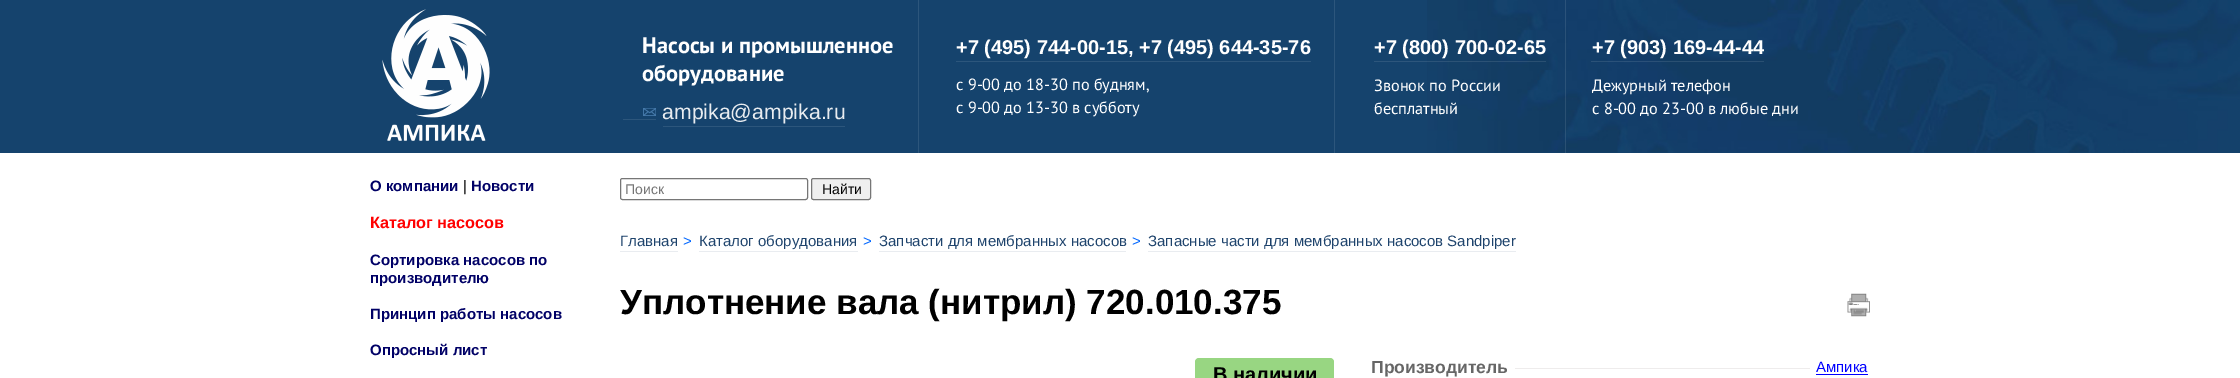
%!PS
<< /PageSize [2240 378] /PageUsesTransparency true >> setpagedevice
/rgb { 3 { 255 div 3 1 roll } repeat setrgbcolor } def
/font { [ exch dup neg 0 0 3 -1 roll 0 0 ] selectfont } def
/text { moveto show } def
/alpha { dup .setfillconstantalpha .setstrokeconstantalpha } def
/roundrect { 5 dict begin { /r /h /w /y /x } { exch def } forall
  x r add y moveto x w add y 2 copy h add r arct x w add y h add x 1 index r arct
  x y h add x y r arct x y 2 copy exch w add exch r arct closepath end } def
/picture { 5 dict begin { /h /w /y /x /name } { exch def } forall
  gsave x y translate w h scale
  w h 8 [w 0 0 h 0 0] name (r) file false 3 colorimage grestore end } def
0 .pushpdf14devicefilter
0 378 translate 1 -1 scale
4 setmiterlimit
255 255 255 rgb
0 0 2240 378 rectfill
21 67 109 rgb
0 0 2240 153 rectfill
(img_01.rgb) 1427 0 813 153 picture
(img_02.rgb) 382 9 108 132 picture
44 86 124 rgb
623 119 33 1 rectfill
663 126 182 1 rectfill
(img_03.rgb) 643 108 13 8 picture
918 0 1 153 rectfill
956 61 355 1 rectfill
1334 0 1 153 rectfill
0.1 alpha
255 255 255 rgb
1374 61 172 1 rectfill
1565 0 1 153 rectfill
1591 61 173 1 rectfill
1 alpha
118 118 118 rgb
620.5 178.5 187 21 2 roundrect stroke
239 239 239 rgb
811.5 178.5 59 21 2 roundrect gsave fill grestore
118 118 118 rgb
stroke
233 236 240 rgb
620 251 58 1 rectfill
699 251 159 1 rectfill
879 251 247 1 rectfill
1148 251 368 1 rectfill
(img_04.rgb) 1847 293 23 24 picture
152 214 130 rgb
1195 358 139 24 4 roundrect fill
238 236 236 rgb
1515 368 295 1 rectfill
0 0 255 rgb
1816 374 52 1 rectfill
/PTSans-Bold 22.5 font
255 255 255 rgb
(Насосы и промышленное) 642 53 text
(оборудование) 642 81 text
/LiberationSans-Regular 21.25 font
232 236 240 rgb
(ampika@ampika.ru) 662 119 text
/LiberationSans-Bold 20 font
255 255 255 rgb
(+7 \(495\) 744-00-15, +7 \(495\) 644-35-76) 956 54 text
/PTSans-Regular 16.25 font
(c 9-00 до 18-30 по будням,) 956 90 text
(с 9-00 до 13-30 в субботу) 956 113 text
/LiberationSans-Bold 20 font
(+7 \(800\) 700-02-65) 1374 54 text
/PTSans-Regular 16.25 font
(Звонок по России) 1374 91 text
(бесплатный) 1374 114 text
/LiberationSans-Bold 20 font
(+7 \(903\) 169-44-44) 1592 54 text
/PTSans-Regular 16.25 font
(Дежурный телефон) 1592 91 text
(c 8-00 до 23-00 в любые дни) 1592 114 text
/LiberationSans-Bold 15 font
0 0 102 rgb
(О компании) 370 191 text
/LiberationSans-Regular 15 font
0 0 0 rgb
(|) 463 191 text
/LiberationSans-Bold 15 font
0 0 102 rgb
(Новости) 471 191 text
/LiberationSans-Bold 16.25 font
255 0 0 rgb
(Каталог насосов) 370 228 text
/LiberationSans-Bold 15 font
0 0 102 rgb
(Сортировка насосов по) 370 265 text
(производителю) 370 283 text
(Принцип работы насосов) 370 319 text
(Опросный лист) 370 355 text
/LiberationSans-Regular 14 font
117 117 117 rgb
(Поиск) 625 194 text
0 0 0 rgb
(Найти) 822 194 text
/LiberationSans-Regular 15 font
30 67 108 rgb
(Главная) 620 246 text
0 102 255 rgb
(>) 683 246 text
30 67 108 rgb
(Каталог оборудования) 699 246 text
0 102 255 rgb
(>) 863 246 text
30 67 108 rgb
(Запчасти для мембранных насосов) 879 246 text
0 102 255 rgb
(>) 1132 246 text
30 67 108 rgb
(Запасные части для мембранных насосов Sandpiper) 1148 246 text
/LiberationSans-Bold 35 font
0 0 0 rgb
(Уплотнение вала \(нитрил\) 720.010.375) 620 314 text
/LiberationSans-Bold 20 font
(В наличии) 1213 381 text
/LiberationSans-Bold 17.5 font
102 102 102 rgb
(Производитель) 1371 373 text
/LiberationSans-Regular 15 font
0 0 255 rgb
(Ампика) 1816 372 text
.poppdf14devicefilter showpage
